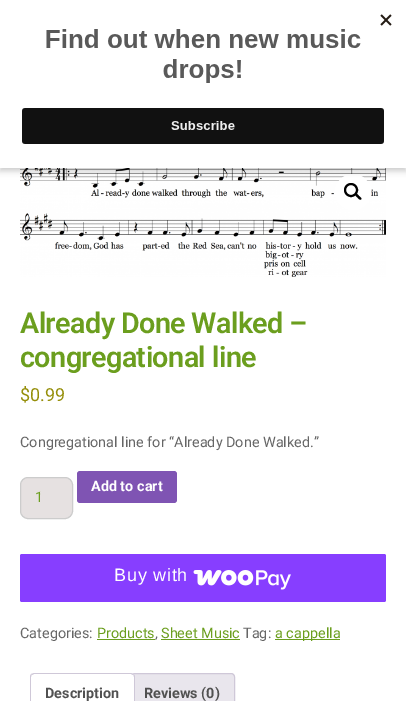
%!PS
<< /PageSize [406 701] /PageUsesTransparency true >> setpagedevice
/rgb { 3 { 255 div 3 1 roll } repeat setrgbcolor } def
/font { [ exch dup neg 0 0 3 -1 roll 0 0 ] selectfont } def
/text { moveto show } def
/alpha { dup .setfillconstantalpha .setstrokeconstantalpha } def
/circle { newpath 0 360 arc closepath } def
/roundrect { 5 dict begin { /r /h /w /y /x } { exch def } forall
  x r add y moveto x w add y 2 copy h add r arct x w add y h add x 1 index r arct
  x y h add x y r arct x y 2 copy exch w add exch r arct closepath end } def
/shadow { 12 dict begin { /a /b /q /h /w /y /x } { exch def } forall gsave /was 0 def
  9 -2 -9 { dup b mul 4 div /e exch def 1 sub .425 mul 2.718 exch exp 1 add a .99 .min exch div /now exch def
    1 1 now sub 1 was sub div sub alpha /was now def
    w h .min e 2 mul add 0 gt { x e sub y e sub w e 2 mul add h e 2 mul add
      q e add b .6 mul add w h .min 2 div e add .min 0 .max roundrect fill } if } for grestore end } def
/picture { 5 dict begin { /h /w /y /x /name } { exch def } forall
  gsave x y translate w h scale
  w h 8 [w 0 0 h 0 0] name (r) file false 3 colorimage grestore end } def
0 .pushpdf14devicefilter
0 701 translate 1 -1 scale
4 setmiterlimit
255 255 255 rgb
0 0 406 701 rectfill
(img_02.rgb) 20 168 366 109 picture
353 192 18 circle fill
0 0 0 rgb
0 3 406 168 0 3 0.2 shadow
255 255 255 rgb
0 0 406 168 rectfill
(img_01.rgb) 22 14 370 130 picture
0 0 0 rgb
2 setlinewidth
351 190 6 circle stroke
355.5 194 moveto 1 -1.5 3 1.5 3.5 2 rcurveto 0.5 0.5 3.5 2.5 2 3.5 rcurveto -1 1 -3 -1.5 -3.5 -2 rcurveto -0.5 -0.5 -3 -2.5 -2 -3.5 rcurveto closepath fill
127 84 179 rgb
77 471 100 32 3 roundrect fill
230 225 225 rgb
20.5 477.5 52 41 7.5 roundrect gsave fill grestore
204 204 204 rgb
1 setlinewidth
stroke
135 62 255 rgb
20 554 366 48 2 roundrect fill
(img_03.rgb) 193 570 98 20 picture
107 158 30 rgb
97 639 58 1 rectfill
161 639 79 1 rectfill
275 639 65 1 rectfill
233 230 237 rgb
132 673.5 moveto 99 0 rlineto 2 0 3.5 1.5 3.5 3.5 rcurveto 0 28.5 rlineto -106 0 rlineto 0 -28.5 rlineto 0 -2 1.5 -3.5 3.5 -3.5 rcurveto closepath gsave fill grestore
207 200 216 rgb
stroke
255 255 255 rgb
34 673 moveto 97 0 rlineto 2 0 4 2 4 4 rcurveto 0 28 rlineto -105 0 rlineto 0 -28 rlineto 0 -2 2 -4 4 -4 rcurveto closepath fill
207 200 216 rgb
34 673 moveto -3 1 rlineto 1 1 rlineto 2 -1 rlineto 97 0 rlineto 2 1 rlineto 1 -1 rlineto -3 -1 rlineto closepath fill
135 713 moveto 0 -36 rlineto 0 -1 -0.5 -2 -1 -3 rcurveto -1 1 rlineto 1 0 1 1 1 2 rcurveto 0 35 rlineto closepath fill
30 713 moveto 1 -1 rlineto 0 -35 rlineto 0 -1 0 -2 1 -2 rcurveto -1 -1 rlineto -0.5 1 -1 2 -1 3 rcurveto closepath fill
/Roboto-SemiBold 28.75 font
107 158 30 rgb
20 333 moveto -0.6 0 (Already Done Walked –) ashow
20 367 moveto -0.6 0 (congregational line) ashow
/Roboto-Regular 18 font
149 142 9 rgb
($0.99) 20 401 text
/Roboto-Regular 14.4 font
102 102 102 rgb
(Congregational line for “Already Done Walked.”) 20 447 text
/Roboto-Bold 14.4 font
255 255 255 rgb
(Add to cart) 91 491 text
/Roboto-Regular 14.4 font
107 158 30 rgb
(1) 35 502 text
/LiberationSans-Regular 18 font
255 255 255 rgb
114 581 moveto 0.75 0 (Buy with) ashow
/Roboto-Regular 14.4 font
102 102 102 rgb
(Categories:) 20 638 text
107 158 30 rgb
(Products) 97 638 text
102 102 102 rgb
(,) 155 638 text
107 158 30 rgb
(Sheet Music) 161 638 text
102 102 102 rgb
(Tag:) 243 638 text
107 158 30 rgb
(a cappella) 275 638 text
/Roboto-Bold 14.4 font
81 81 81 rgb
(Description) 45 698 text
(Reviews \(0\)) 144 698 text
.poppdf14devicefilter showpage
